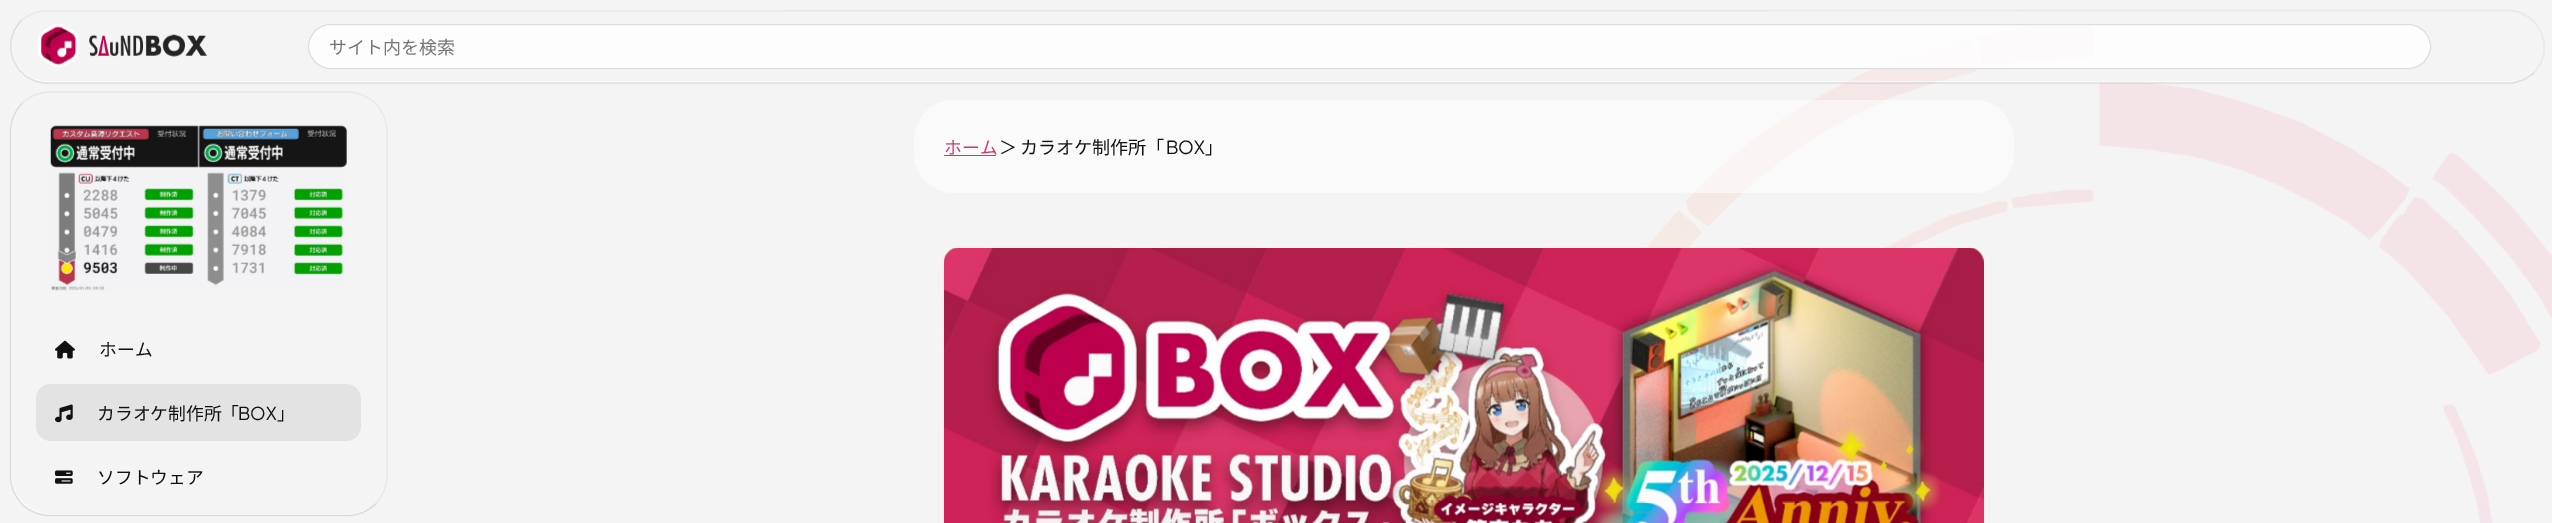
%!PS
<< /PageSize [2552 523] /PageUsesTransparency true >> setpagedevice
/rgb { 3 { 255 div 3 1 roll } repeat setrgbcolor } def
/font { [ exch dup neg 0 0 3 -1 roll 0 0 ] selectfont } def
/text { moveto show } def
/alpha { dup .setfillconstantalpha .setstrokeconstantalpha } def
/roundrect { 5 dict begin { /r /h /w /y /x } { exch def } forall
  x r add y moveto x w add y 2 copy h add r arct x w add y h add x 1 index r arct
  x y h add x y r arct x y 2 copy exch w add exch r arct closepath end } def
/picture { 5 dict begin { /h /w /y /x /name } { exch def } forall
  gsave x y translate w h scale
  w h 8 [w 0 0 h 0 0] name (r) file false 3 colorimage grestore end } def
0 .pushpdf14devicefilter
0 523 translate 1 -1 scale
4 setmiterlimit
244 244 244 rgb
0 0 2552 523 rectfill
(img_03.rgb) 1647 26 905 497 picture
0.2 alpha
10 10 2535 74 37 roundrect fill
0.5 alpha
255 255 255 rgb
21 22 moveto -6 7 -10 15 -10 25 rcurveto 0 20 16 36 36 36 rcurveto 2461 0 rlineto 13 0 25 -7 31 -18 rcurveto -6 9 -17 16 -30 16 rcurveto -2461 0 rlineto -20 0 -36 -16 -36 -35 rcurveto 0 -9 3 -18 9 -24 rcurveto closepath fill
1 alpha
232 232 232 rgb
1.2 setlinewidth
21 21 moveto 6 -5.5 14 -9.5 22.5 -10 rcurveto 2464.5 -0.5 rlineto 32 0 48.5 39.5 26 62 rcurveto stroke
0.1 alpha
0 0 0 rgb
2534 72.5 moveto -6 6 -14 9.5 -22.5 10.5 rcurveto -2464.5 0 rlineto -32 0 -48.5 -39 -26 -62 rcurveto stroke
1 alpha
(img_01.rgb) 38 24 41 44 picture
(img_02.rgb) 89 34 118 23 picture
0.8 alpha
255 255 255 rgb
308.5 24.5 2122 44 22 roundrect fill
1 alpha
221 221 221 rgb
1 setlinewidth
308.5 24.5 2122 44 22 roundrect stroke
0.5 alpha
255 255 255 rgb
914 100 1100 93 40 roundrect fill
1 alpha
212 51 113 rgb
944 155 52 1 rectfill
(img_04.rgb) 944 248 1040 275 picture
250 250 250 rgb
18 110 moveto -5 6 -7 14 -7 22 rcurveto 0 344 rlineto 0 22 17 39 39 39 rcurveto 297 0 rlineto 8 0 16 -2 22 -7 rcurveto -6 4 -13 6 -20 6 rcurveto -298 0 rlineto -21 0 -39 -18 -39 -39 rcurveto 0 -345 rlineto 0 -7 2 -14 6 -20 rcurveto closepath fill
232 232 232 rgb
1.2 setlinewidth
22 103.5 moveto 7.5 -7.5 17.5 -11.5 28 -11.5 rcurveto 297.5 0 rlineto 10.5 0 20.5 4 28 11.5 rcurveto 7 7.5 11.5 17.5 11.5 27.5 rcurveto 0 345 rlineto 0 10.5 -4.5 20.5 -11.5 28 rcurveto stroke
0.1 alpha
0 0 0 rgb
375.5 504 moveto -7.5 7.5 -17.5 11.5 -28 11.5 rcurveto -297.5 0 rlineto -10.5 0 -20.5 -4 -28 -11.5 rcurveto -7 -7.5 -11.5 -17.5 -11.5 -28 rcurveto 0 -344.5 rlineto 0 -10.5 4.5 -20.5 11.5 -28 rcurveto stroke
1 alpha
(img_05.rgb) 50 125 297 166 picture
(img_06.rgb) 55 340 20 19 picture
227 227 227 rgb
36 384 325 57 15 roundrect fill
(img_07.rgb) 55 404 18 19 picture
(img_08.rgb) 55 470 18 14 picture
/NotoSansJP-Regular 18 font
117 117 117 rgb
(サイト内を検索) 329 54 text
/NotoSansJP-Regular 17.75 font
212 51 113 rgb
(ホーム) 944 154 text
/NotoSansJP-Regular 18 font
17 17 17 rgb
999 154 moveto -1 0 32 (＞ カラオケ制作所「) widthshow
/PlusJakartaSans-Regular 18 font
(BOX) 1166 154 text
/NotoSansJP-Regular 18 font
(」) 1205 154 text
/NotoSansJP-Regular 17.75 font
(ホーム) 99 356 text
(カラオケ制作所「) 97 420 text
/PlusJakartaSans-Regular 17.75 font
(BOX) 238 420 text
/NotoSansJP-Regular 17.75 font
(」) 277 420 text
(ソフトウェア) 97 484 text
.poppdf14devicefilter showpage
